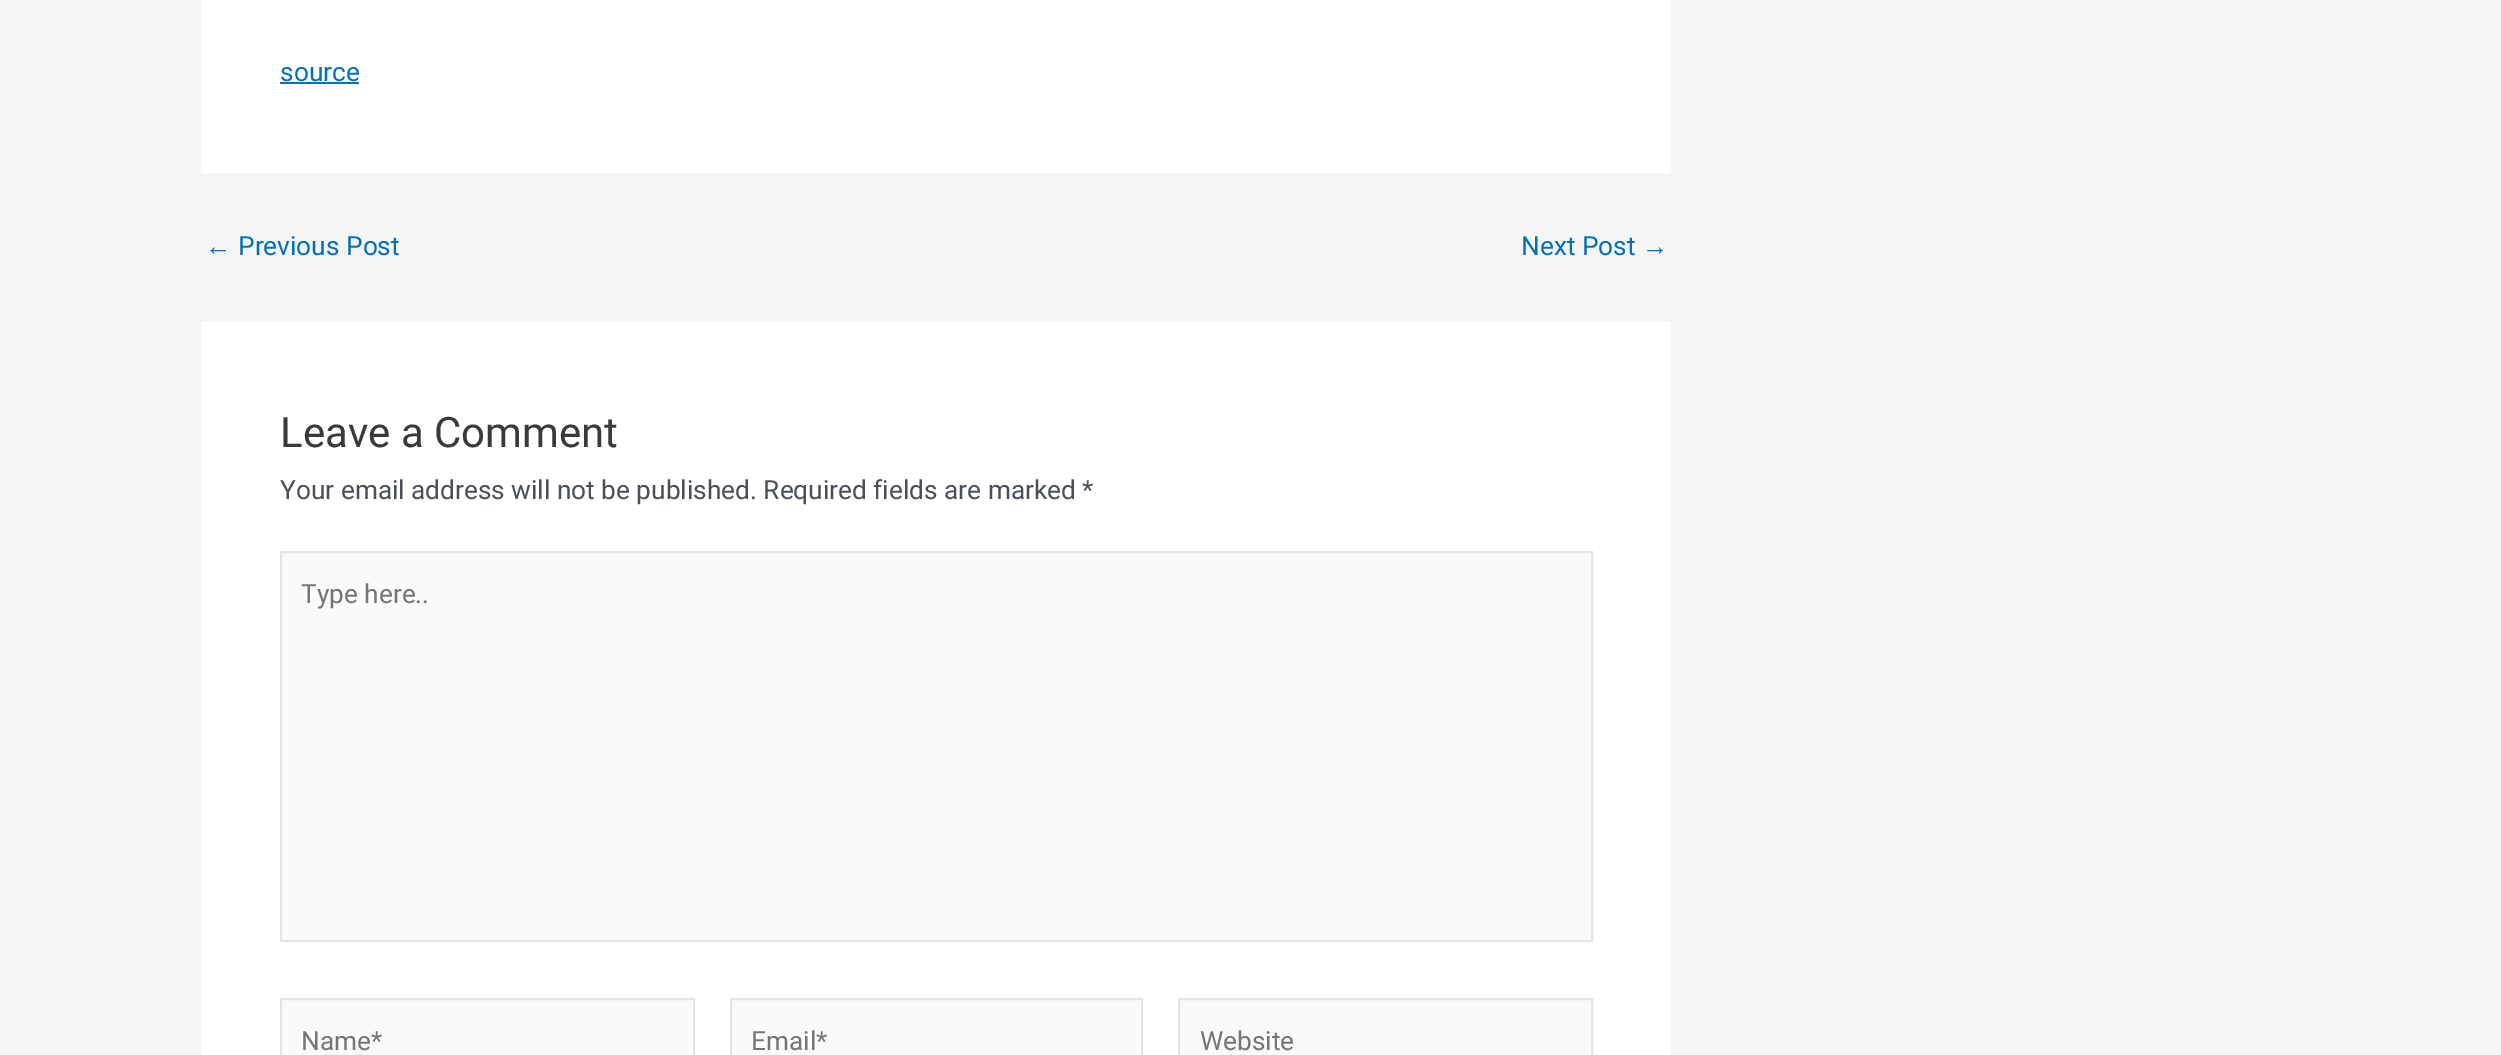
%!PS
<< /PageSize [2501 1055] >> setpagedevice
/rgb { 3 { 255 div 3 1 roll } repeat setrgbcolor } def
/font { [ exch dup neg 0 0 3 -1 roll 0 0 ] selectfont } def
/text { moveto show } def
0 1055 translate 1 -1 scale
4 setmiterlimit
245 245 245 rgb
0 0 2501 1055 rectfill
255 255 255 rgb
201 0 1470 173 rectfill
1 112 185 rgb
280 82 79 2 rectfill
255 255 255 rgb
201 322 1470 733 rectfill
250 250 250 rgb
281 552 moveto 1311 0 rlineto 0 389 rlineto -1311 0 rlineto closepath gsave fill grestore
229 229 229 rgb
2 setlinewidth
stroke
250 250 250 rgb
281 999 moveto 413 0 rlineto 0 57 rlineto -413 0 rlineto closepath gsave fill grestore
229 229 229 rgb
stroke
250 250 250 rgb
731 999 moveto 411 0 rlineto 0 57 rlineto -411 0 rlineto closepath gsave fill grestore
229 229 229 rgb
stroke
250 250 250 rgb
1179 999 moveto 413 0 rlineto 0 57 rlineto -413 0 rlineto closepath gsave fill grestore
229 229 229 rgb
stroke
/Roboto-Regular 26.25 font
1 112 185 rgb
(source) 280 81 text
/LiberationSans-Regular 26.25 font
(←) 205 255 text
/Roboto-Regular 26.25 font
(Previous Post) 238 255 text
(Next Post) 1521 255 text
/LiberationSans-Regular 26.25 font
(→) 1642 255 text
/Roboto-Regular 42 font
58 58 58 rgb
(Leave a Comment) 280 447 text
/Roboto-Regular 26.25 font
75 79 88 rgb
(Your email address will not be published. Required fields are marked *) 280 499 text
117 117 117 rgb
(Type here..) 301 603 text
(Name*) 301 1050 text
(Email*) 751 1050 text
(Website) 1200 1050 text
showpage
